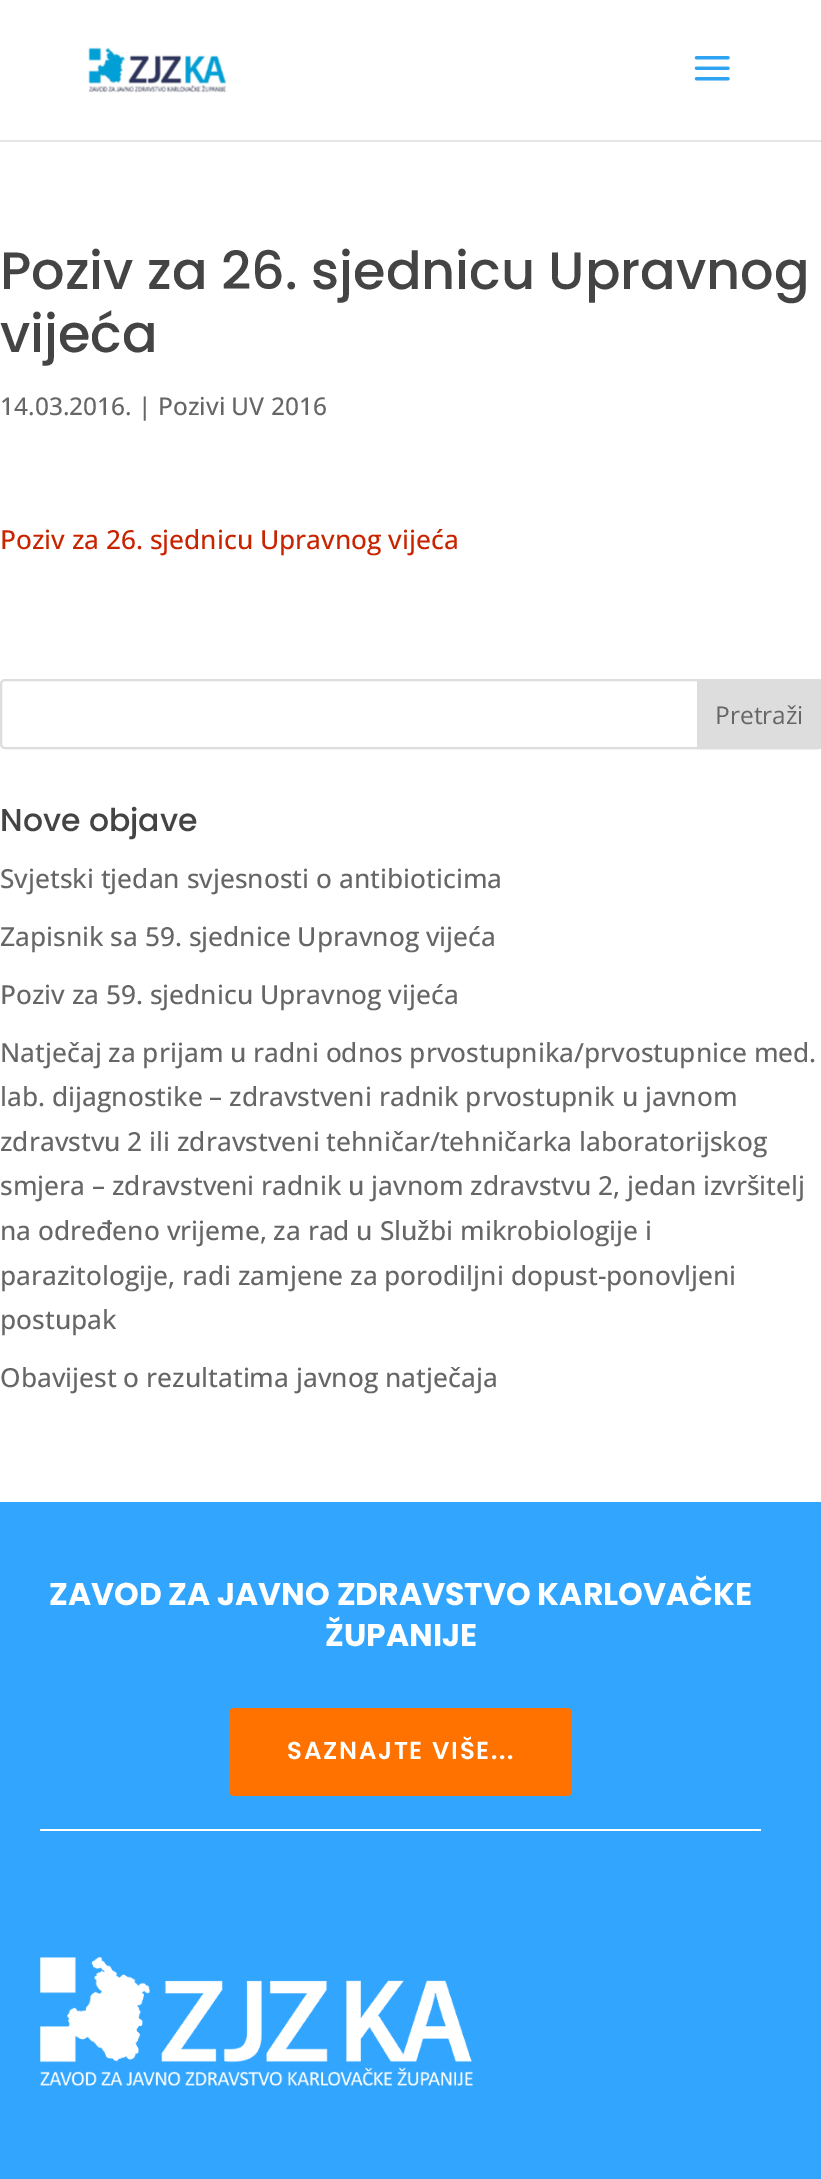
%!PS
<< /PageSize [821 2179] >> setpagedevice
/rgb { 3 { 255 div 3 1 roll } repeat setrgbcolor } def
/font { [ exch dup neg 0 0 3 -1 roll 0 0 ] selectfont } def
/text { moveto show } def
/roundrect { 5 dict begin { /r /h /w /y /x } { exch def } forall
  x r add y moveto x w add y 2 copy h add r arct x w add y h add x 1 index r arct
  x y h add x y r arct x y 2 copy exch w add exch r arct closepath end } def
/picture { 5 dict begin { /h /w /y /x /name } { exch def } forall
  gsave x y translate w h scale
  w h 8 [w 0 0 h 0 0] name (r) file false 3 colorimage grestore end } def
0 2179 translate 1 -1 scale
4 setmiterlimit
255 255 255 rgb
0 0 821 2179 rectfill
230 230 230 rgb
0 140 moveto 0 2 rlineto 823 0 rlineto 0 -140 rlineto -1 0 rlineto 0 138 rlineto closepath fill
(img_01.rgb) 88 47 139 46 picture
(img_02.rgb) 694 56 36 25 picture
221 221 221 rgb
2 setlinewidth
1 680 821 68 4 roundrect stroke
698 680 moveto 120 0 rlineto 2 0 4 2 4 4 rcurveto 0 60 rlineto 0 2 -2 4 -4 4 rcurveto -120 0 rlineto closepath gsave fill grestore
stroke
gsave 0 1502 moveto 821 0 rlineto 0 677 rlineto -821 0 rlineto closepath clip newpath
<< /ShadingType 2 /ColorSpace /DeviceRGB /Coords [384 1495 438 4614] /Extend [true true] /Function << /FunctionType 3 /Domain [0 1] /Functions [<< /FunctionType 2 /Domain [0 1] /C0 [0.196 0.651 1] /C1 [0.196 0.651 1] /N 1 >> << /FunctionType 2 /Domain [0 1] /C0 [0.196 0.651 1] /C1 [0 0.145 0.486] /N 1 >>] /Bounds [0.26] /Encode [0 1 0 1] >> >> shfill grestore
255 114 0 rgb
229 1708 343 88 5 roundrect fill
255 255 255 rgb
40 1829 721 2 rectfill
(img_03.rgb) 40 1957 433 129 picture
/Poppins-Medium 52.5 font
68 68 68 rgb
(Poziv za 26. sjednicu Upravnog) 0 289 text
(vijeća) 0 352 text
/OpenSans-Medium 24.5 font
102 102 102 rgb
(14.03.2016. | Pozivi UV 2016) 0 415 text
/OpenSans-Medium 26.25 font
201 36 0 rgb
(Poziv za 26. sjednicu Upravnog vijeća) 0 549 text
/OpenSans-Regular 24.5 font
102 102 102 rgb
(Pretraži) 715 724 text
/Poppins-Medium 31.5 font
68 68 68 rgb
(Nove objave) 0 831 text
/OpenSans-Medium 26.25 font
102 102 102 rgb
(Svjetski tjedan svjesnosti o antibioticima) 0 888 text
(Zapisnik sa 59. sjednice Upravnog vijeća) 0 946 text
(Poziv za 59. sjednicu Upravnog vijeća) 0 1004 text
(Natječaj za prijam u radni odnos prvostupnika/prvostupnice med.) 0 1062 text
(lab. dijagnostike – zdravstveni radnik prvostupnik u javnom) 0 1106 text
(zdravstvu 2 ili zdravstveni tehničar/tehničarka laboratorijskog) 0 1151 text
(smjera – zdravstveni radnik u javnom zdravstvu 2, jedan izvršitelj) 0 1195 text
(na određeno vrijeme, za rad u Službi mikrobiologije i) 0 1240 text
(parazitologije, radi zamjene za porodiljni dopust-ponovljeni) 0 1285 text
(postupak) 0 1329 text
(Obavijest o rezultatima javnog natječaja) 0 1387 text
/Poppins-Bold 31.5 font
255 255 255 rgb
(ZAVOD ZA JAVNO ZDRAVSTVO KARLOVAČKE) 49 1605 text
(ŽUPANIJE) 325 1646 text
/Poppins-SemiBold 24.5 font
287 1759 moveto 1.75 0 (SAZNAJTE VIŠE...) ashow
showpage
